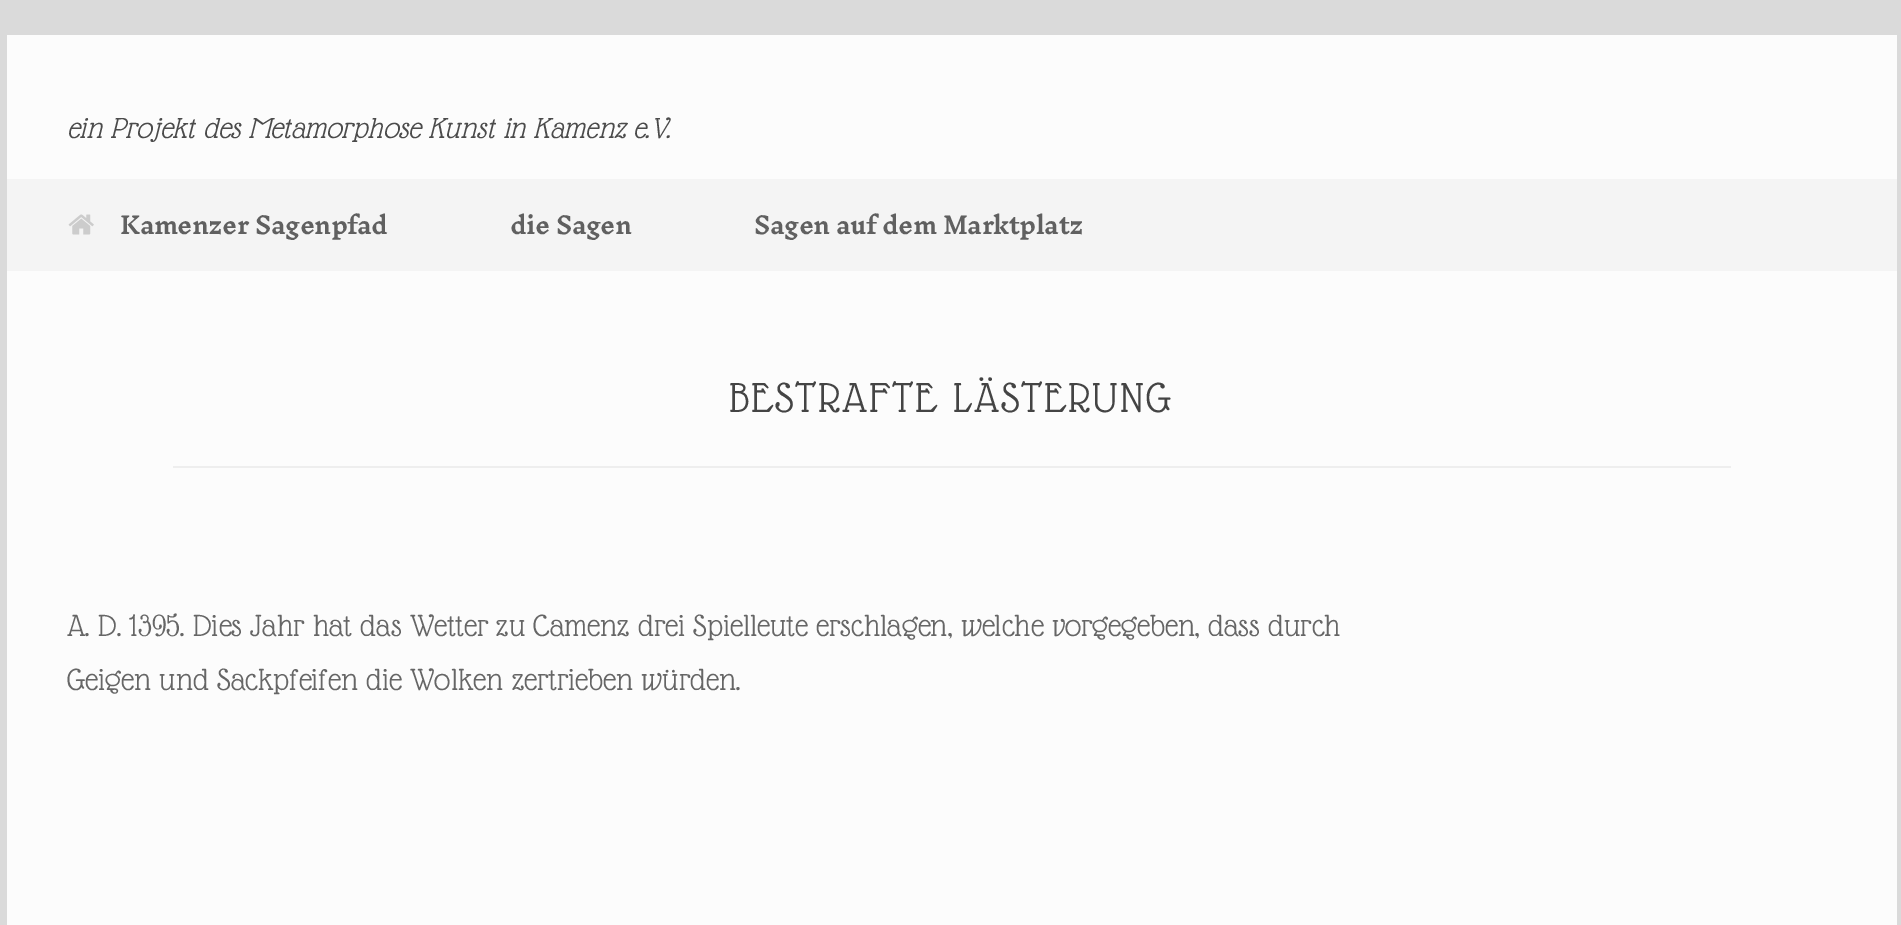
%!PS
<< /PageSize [1901 925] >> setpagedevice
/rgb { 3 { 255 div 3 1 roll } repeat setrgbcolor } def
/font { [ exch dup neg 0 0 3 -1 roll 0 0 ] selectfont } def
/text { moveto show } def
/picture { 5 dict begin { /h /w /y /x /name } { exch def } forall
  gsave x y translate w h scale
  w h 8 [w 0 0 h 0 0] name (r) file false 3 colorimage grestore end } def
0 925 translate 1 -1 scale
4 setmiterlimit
218 218 218 rgb
0 0 1901 925 rectfill
252 252 252 rgb
7 35 1890 144 rectfill
244 244 244 rgb
7 179 1890 92 rectfill
(img_01.rgb) 68 214 26 21 picture
252 252 252 rgb
7 271 1890 654 rectfill
238 238 238 rgb
173 466 1558 2 rectfill
/GlassAntiqua-Italic 31.5 font
75 75 75 rgb
(ein Projekt des Metamorphose Kunst in Kamenz e.V.) 67 138 text
/InknutAntiqua-Bold 22.75 font
96 96 96 rgb
(Kamenzer Sagenpfad) 120 234 text
(die Sagen) 510 234 text
(Sagen auf dem Marktplatz) 754 234 text
/GlassAntiqua-Regular 45.5 font
68 68 68 rgb
729 412 moveto 1.75 0 (BESTRAFTE LÄSTERUNG) ashow
/GlassAntiqua-Regular 33.25 font
102 102 102 rgb
(A. D. 1395. Dies Jahr hat das Wetter zu Camenz drei Spielleute erschlagen, welche vorgegeben, dass durch) 67 636 text
(Geigen und Sackpfeifen die Wolken zertrieben würden.) 67 690 text
showpage
